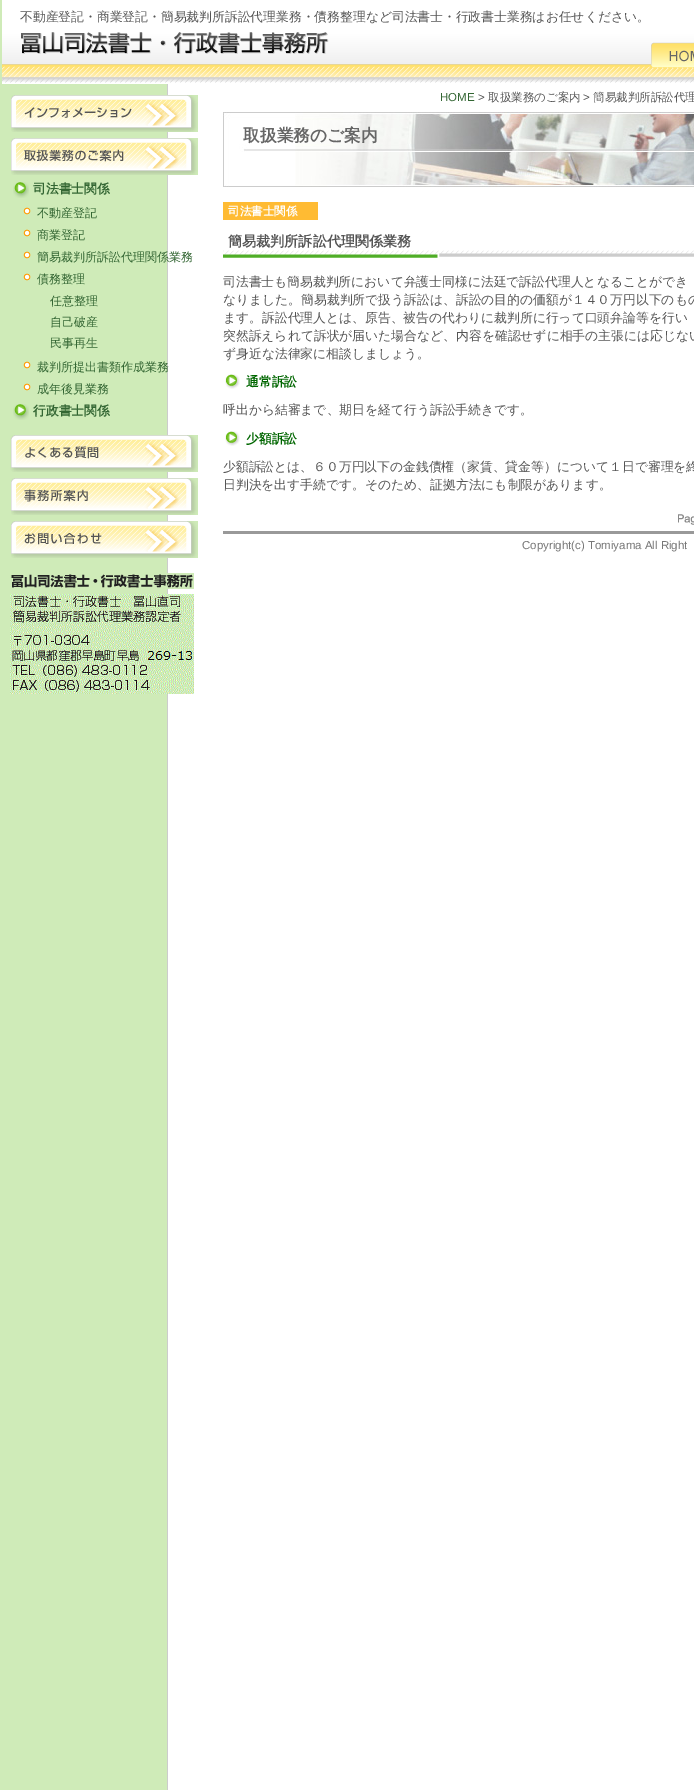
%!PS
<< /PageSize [694 1790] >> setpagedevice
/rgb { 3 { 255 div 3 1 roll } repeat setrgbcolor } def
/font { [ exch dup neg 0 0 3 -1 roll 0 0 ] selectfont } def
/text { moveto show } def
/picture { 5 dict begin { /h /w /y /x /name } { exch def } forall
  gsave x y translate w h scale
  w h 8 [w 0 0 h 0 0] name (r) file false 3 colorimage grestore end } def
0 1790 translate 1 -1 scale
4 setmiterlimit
255 255 255 rgb
0 0 694 1790 rectfill
(img_01.rgb) 0 0 694 1790 picture
2 0 166 84 rectfill
(img_02.rgb) 2 32 692 51 picture
(img_03.rgb) 651 42 43 26 picture
(img_04.rgb) 11 95 187 37 picture
(img_05.rgb) 11 138 187 37 picture
(img_06.rgb) 13 182 16 16 picture
(img_07.rgb) 23 207 8 8 picture
(img_07.rgb) 23 229 8 8 picture
(img_07.rgb) 23 251 8 8 picture
(img_07.rgb) 23 273 8 8 picture
(img_07.rgb) 23 361 8 8 picture
(img_07.rgb) 23 383 8 8 picture
(img_06.rgb) 13 404 16 16 picture
(img_08.rgb) 10 435 188 37 picture
(img_09.rgb) 11 478 187 37 picture
(img_10.rgb) 11 521 187 37 picture
(img_11.rgb) 11 573 183 16 picture
(img_12.rgb) 10 594 184 100 picture
(img_13.rgb) 223 112 471 75 picture
255 187 51 rgb
223 202 95 18 rectfill
(img_14.rgb) 223 250 471 8 picture
(img_15.rgb) 225 374 15 15 picture
(img_15.rgb) 225 431 15 15 picture
(img_16.rgb) 678 514 16 11 picture
153 153 153 rgb
223 531 471 3 rectfill
/WenQuanYiZenHei-Medium 12.8 font
85 85 85 rgb
(不動産登記・商業登記・簡易裁判所訴訟代理業務・債務整理など司法書士・行政書士業務はお任せください。) 20 21 text
/WenQuanYiZenHei-Bold 12.8 font
51 102 51 rgb
(司法書士関係) 33 193 text
/WenQuanYiZenHei-Medium 12 font
(不動産登記) 37 217 text
(商業登記) 37 239 text
(簡易裁判所訴訟代理関係業務) 37 261 text
(債務整理) 37 283 text
(任意整理) 50 305 text
(自己破産) 50 326 text
(民事再生) 50 347 text
(裁判所提出書類作成業務) 37 371 text
(成年後見業務) 37 393 text
/WenQuanYiZenHei-Bold 12.8 font
(行政書士関係) 33 415 text
/LiberationSans-Regular 11.5 font
(HOME) 440 101 text
85 85 85 rgb
(>) 478 101 text
/WenQuanYiZenHei-Medium 11.5 font
(取扱業務のご案内) 488 101 text
/LiberationSans-Regular 11.5 font
(>) 583 101 text
/WenQuanYiZenHei-Medium 11.5 font
(簡易裁判所訴訟代理) 593 101 text
/WenQuanYiZenHei-Bold 16.75 font
102 102 102 rgb
(取扱業務のご案内) 243 141 text
/WenQuanYiZenHei-Bold 11.5 font
255 255 255 rgb
(司法書士関係) 228 215 text
/WenQuanYiZenHei-Bold 14.1 font
85 85 85 rgb
(簡易裁判所訴訟代理関係業務) 228 246 text
/WenQuanYiZenHei-Medium 12.8 font
(司法書士も簡易裁判所において弁護士同様に法廷で訴訟代理人となることができ) 223 286 text
(なりました。簡易裁判所で扱う訴訟は、訴訟の目的の価額が１４０万円以下のもの) 223 304 text
(ます。訴訟代理人とは、原告、被告の代わりに裁判所に行って口頭弁論等を行い) 223 322 text
(突然訴えられて訴状が届いた場合など、内容を確認せずに相手の主張には応じない) 223 340 text
(ず身近な法律家に相談しましょう。) 223 358 text
/WenQuanYiZenHei-Bold 12.8 font
0 102 0 rgb
(通常訴訟) 246 386 text
/WenQuanYiZenHei-Medium 12.8 font
85 85 85 rgb
(呼出から結審まで、期日を経て行う訴訟手続きです。) 223 414 text
/WenQuanYiZenHei-Bold 12.8 font
0 102 0 rgb
(少額訴訟) 246 443 text
/WenQuanYiZenHei-Medium 12.8 font
85 85 85 rgb
(少額訴訟とは、６０万円以下の金銭債権（家賃、貸金等）について１日で審理を終) 223 471 text
(日判決を出す手続です。そのため、証拠方法にも制限があります。) 223 489 text
/LiberationSans-Regular 11.5 font
119 119 119 rgb
(Copyright\(c\) Tomiyama All Right) 522 549 text
showpage
